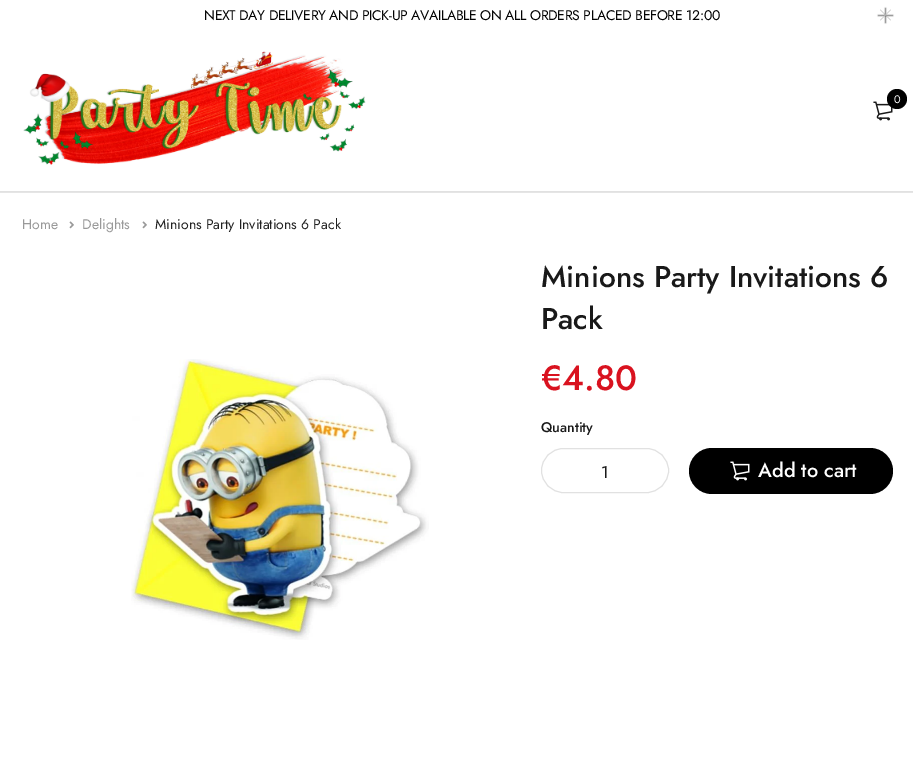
%!PS
<< /PageSize [913 764] /PageUsesTransparency true >> setpagedevice
/rgb { 3 { 255 div 3 1 roll } repeat setrgbcolor } def
/font { [ exch dup neg 0 0 3 -1 roll 0 0 ] selectfont } def
/text { moveto show } def
/alpha { dup .setfillconstantalpha .setstrokeconstantalpha } def
/circle { newpath 0 360 arc closepath } def
/roundrect { 5 dict begin { /r /h /w /y /x } { exch def } forall
  x r add y moveto x w add y 2 copy h add r arct x w add y h add x 1 index r arct
  x y h add x y r arct x y 2 copy exch w add exch r arct closepath end } def
/shadow { 12 dict begin { /a /b /q /h /w /y /x } { exch def } forall gsave /was 0 def
  9 -2 -9 { dup b mul 4 div /e exch def 1 sub .425 mul 2.718 exch exp 1 add a .99 .min exch div /now exch def
    1 1 now sub 1 was sub div sub alpha /was now def
    w h .min e 2 mul add 0 gt { x e sub y e sub w e 2 mul add h e 2 mul add
      q e add b .6 mul add w h .min 2 div e add .min 0 .max roundrect fill } if } for grestore end } def
/picture { 5 dict begin { /h /w /y /x /name } { exch def } forall
  gsave x y translate w h scale
  w h 8 [w 0 0 h 0 0] name (r) file false 3 colorimage grestore end } def
0 .pushpdf14devicefilter
0 764 translate 1 -1 scale
4 setmiterlimit
255 255 255 rgb
0 0 913 764 rectfill
229 229 229 rgb
0 192 913 1 rectfill
0 0 0 rgb
878 15 15 1 0 0.5 0.5 shadow
204 204 204 rgb
880.5 9.5 moveto 10.5 10.5 rlineto -0.5 0.5 rlineto -10.5 -10.5 rlineto closepath fill
0 0 0 rgb
885 8 1 15 0 0.5 0.5 shadow
204 204 204 rgb
890.5 9.5 moveto 0.5 0.5 rlineto -10.5 10.5 rlineto -0.5 -0.5 rlineto closepath fill
(img_01.rgb) 23 51 343 114 picture
(img_02.rgb) 873 101 20 20 picture
0 0 0 rgb
897 99 10 circle fill
225 225 225 rgb
0 191 913 1 rectfill
(img_03.rgb) 69 221 5 8 picture
(img_03.rgb) 142 221 5 8 picture
(img_04.rgb) 131 359 298 281 picture
541.5 448.5 127 44 22 roundrect stroke
0 0 0 rgb
689 448 204 46 23 roundrect fill
(img_05.rgb) 730 461 20 20 picture
/Jost-Regular 14 font
2 2 2 rgb
204 20 moveto -0.35 0 (NEXT DAY DELIVERY AND PICK-UP AVAILABLE ON ALL ORDERS PLACED BEFORE 12:00) ashow
/Jost-Regular 11 font
255 255 255 rgb
894 103 moveto -0.35 0 (0) ashow
/Jost-Regular 14 font
153 153 153 rgb
(Home) 22 229 text
(Delights) 82 229 text
34 34 34 rgb
(Minions Party Invitations 6 Pack) 155 229 text
/Jost-Medium 30 font
25 25 25 rgb
(Minions Party Invitations 6) 541 287 text
(Pack) 541 329 text
/Jost-Medium 35 font
217 18 31 rgb
(€4.80) 541 390 text
/Jost-Medium 14 font
25 25 25 rgb
(Quantity) 541 432 text
/Jost-Regular 17 font
(1) 601 478 text
/Jost-Medium 20 font
255 255 255 rgb
(Add to cart) 758 477 text
.poppdf14devicefilter showpage
